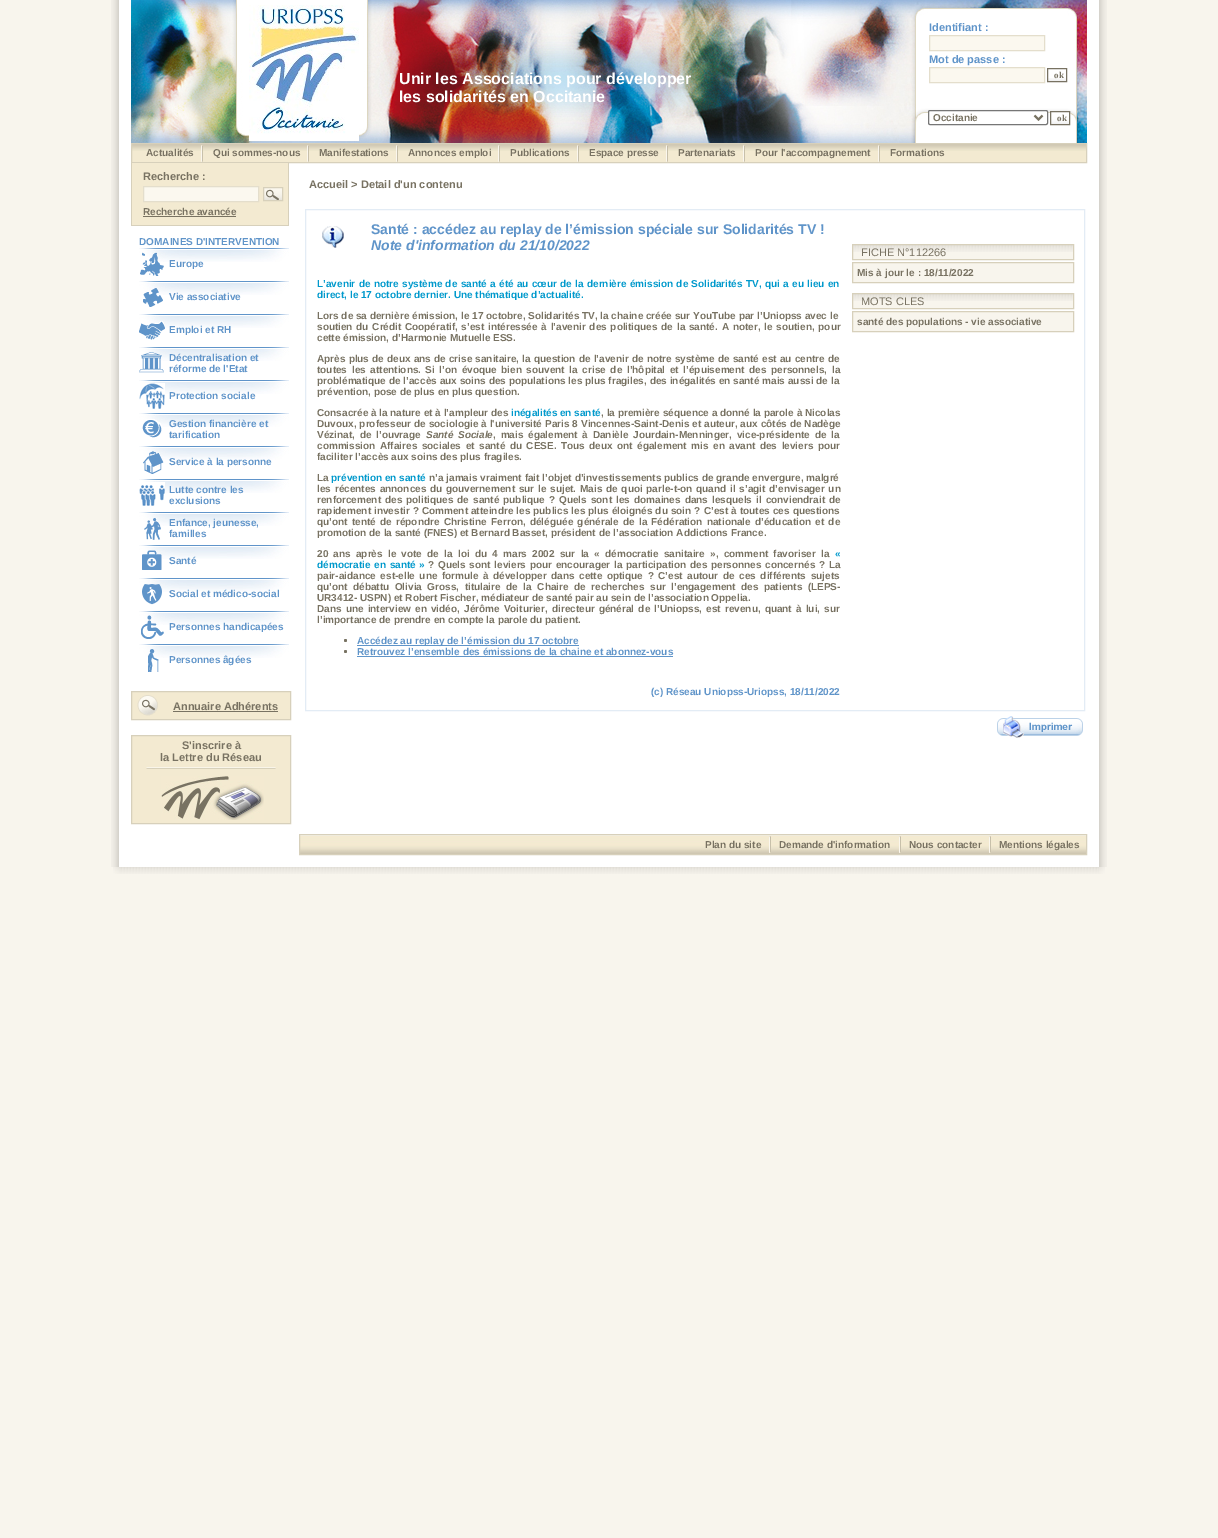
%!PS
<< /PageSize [1218 1538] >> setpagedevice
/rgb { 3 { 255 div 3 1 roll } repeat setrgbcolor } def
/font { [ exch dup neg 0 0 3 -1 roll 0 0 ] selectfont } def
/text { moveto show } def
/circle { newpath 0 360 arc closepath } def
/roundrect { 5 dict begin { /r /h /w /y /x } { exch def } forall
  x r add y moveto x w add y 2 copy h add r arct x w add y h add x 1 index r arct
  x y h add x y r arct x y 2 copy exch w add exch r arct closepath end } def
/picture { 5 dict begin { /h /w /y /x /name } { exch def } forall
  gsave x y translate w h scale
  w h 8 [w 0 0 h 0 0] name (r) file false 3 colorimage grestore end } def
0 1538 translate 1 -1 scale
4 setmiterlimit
248 245 237 rgb
0 0 1218 1538 rectfill
(img_01.rgb) 111 0 8 867 picture
255 255 255 rgb
119 0 980 867 rectfill
(img_02.rgb) 131 0 956 143 picture
(img_03.rgb) 249 5 110 136 picture
251 248 239 rgb
929.5 35.5 moveto 115 0 rlineto 0 15 rlineto -115 0 rlineto closepath gsave fill grestore
228 222 204 rgb
stroke
251 248 239 rgb
929.5 67.5 moveto 115 0 rlineto 0 15 rlineto -115 0 rlineto closepath gsave fill grestore
228 222 204 rgb
stroke
(img_04.rgb) 1048 78 18 3 picture
120 114 98 rgb
1047.5 68.5 19 13 rectstroke
255 255 255 rgb
928.5 110.5 119 14 1.5 roundrect gsave fill grestore
118 118 118 rgb
stroke
120 114 98 rgb
2 setlinewidth
1034.5 115.5 moveto 4 4 rlineto 4 -4 rlineto stroke
(img_05.rgb) 1051 112 18 12 picture
1 setlinewidth
1050.5 111.5 19 13 rectstroke
243 234 209 rgb
132 151 954 11 rectfill
(img_06.rgb) 132 144 954 7 picture
215 208 187 rgb
288 162 1 64 rectfill
131 225 158 1 rectfill
131 162 1 64 rectfill
131.5 143.5 955 19 rectstroke
(img_07.rgb) 201 145 2 17 picture
(img_07.rgb) 307 145 2 17 picture
(img_07.rgb) 396 145 2 17 picture
(img_07.rgb) 498 145 2 17 picture
(img_07.rgb) 577 145 2 17 picture
(img_07.rgb) 666 145 2 17 picture
(img_07.rgb) 743 145 2 17 picture
(img_07.rgb) 878 145 2 17 picture
243 234 209 rgb
132 163 156 62 rectfill
251 248 239 rgb
143.5 186.5 moveto 115 0 rlineto 0 15 rlineto -115 0 rlineto closepath gsave fill grestore
228 222 204 rgb
stroke
(img_08.rgb) 264 188 18 12 picture
215 208 187 rgb
263.5 187.5 19 13 rectstroke
120 114 98 rgb
143 216 93 1 rectfill
(img_09.rgb) 139 248 150 14 picture
(img_10.rgb) 140 252 24 24 picture
(img_09.rgb) 139 281 150 14 picture
(img_11.rgb) 143 288 20 19 picture
(img_09.rgb) 139 314 150 14 picture
(img_12.rgb) 139 321 26 19 picture
(img_09.rgb) 139 347 150 14 picture
(img_13.rgb) 139 352 25 21 picture
(img_09.rgb) 139 380 150 14 picture
(img_14.rgb) 139 383 26 26 picture
(img_09.rgb) 139 413 150 14 picture
(img_15.rgb) 142 419 20 19 picture
(img_09.rgb) 139 446 150 14 picture
(img_16.rgb) 143 451 21 23 picture
(img_09.rgb) 139 479 150 14 picture
(img_17.rgb) 139 482 26 24 picture
(img_09.rgb) 139 512 150 14 picture
(img_18.rgb) 144 518 17 22 picture
(img_09.rgb) 139 545 150 14 picture
(img_19.rgb) 142 550 20 20 picture
(img_09.rgb) 139 578 150 14 picture
(img_20.rgb) 142 584 20 21 picture
(img_09.rgb) 139 611 150 14 picture
(img_21.rgb) 141 615 23 24 picture
(img_09.rgb) 139 644 150 14 picture
(img_22.rgb) 148 649 11 23 picture
243 234 209 rgb
131.5 691.5 moveto 159 0 rlineto 0 28 rlineto -159 0 rlineto closepath gsave fill grestore
215 208 187 rgb
stroke
(img_23.rgb) 137 695 21 21 picture
120 114 98 rgb
173 711 105 1 rectfill
243 234 209 rgb
131.5 735.5 moveto 159 0 rlineto 0 88 rlineto -159 0 rlineto closepath gsave fill grestore
215 208 187 rgb
stroke
(img_24.rgb) 146 767 130 2 picture
(img_25.rgb) 161 776 103 44 picture
227 236 245 rgb
305.5 209.5 779 501 rectstroke
(img_26.rgb) 322 226 22 22 picture
120 114 98 rgb
345.5 640.5 1.5 circle fill
95 148 201 rgb
357 645 222 1 rectfill
120 114 98 rgb
345.5 651.5 1.5 circle fill
95 148 201 rgb
357 656 316 1 rectfill
248 245 237 rgb
853 252 220 7 rectfill
(img_27.rgb) 853 245 220 7 picture
215 208 187 rgb
852.5 244.5 221 15 rectstroke
248 245 237 rgb
852.5 262.5 moveto 221 0 rlineto 0 20 rlineto -221 0 rlineto closepath gsave fill grestore
215 208 187 rgb
stroke
248 245 237 rgb
853 301 220 7 rectfill
(img_27.rgb) 853 294 220 7 picture
215 208 187 rgb
852.5 293.5 221 15 rectstroke
248 245 237 rgb
852.5 311.5 moveto 221 0 rlineto 0 20 rlineto -221 0 rlineto closepath gsave fill grestore
215 208 187 rgb
stroke
(img_28.rgb) 997 716 86 22 picture
(img_29.rgb) 300 835 786 19 picture
299.5 834.5 787 20 rectstroke
(img_07.rgb) 769 836 2 17 picture
(img_07.rgb) 899 836 2 17 picture
(img_07.rgb) 989 836 2 17 picture
(img_30.rgb) 1099 0 8 867 picture
(img_31.rgb) 113 867 6 7 picture
(img_32.rgb) 119 867 980 7 picture
(img_33.rgb) 1099 867 6 7 picture
/LiberationSans-Bold 16 font
255 255 255 rgb
(Unir les Associations pour développer) 399 84 text
(les solidarités en Occitanie) 399 102 text
/LiberationSans-Bold 11 font
95 148 201 rgb
(Identifiant :) 929 31 text
(Mot de passe :) 929 63 text
/LiberationSerif-Bold 9 font
120 114 98 rgb
(ok) 1054 78 text
/LiberationSans-Bold 10 font
(Occitanie) 933 121 text
/LiberationSerif-Bold 9 font
(ok) 1057 121 text
/LiberationSans-Bold 10 font
(Actualités) 146 156 text
(Qui sommes-nous) 213 156 text
(Manifestations) 319 156 text
(Annonces emploi) 408 156 text
(Publications) 510 156 text
(Espace presse) 589 156 text
(Partenariats) 678 156 text
(Pour l'accompagnement) 755 156 text
(Formations) 890 156 text
/LiberationSans-Bold 11 font
(Recherche :) 143 180 text
/LiberationSans-Bold 10 font
(Recherche avancée) 143 215 text
95 148 201 rgb
(DOMAINES D'INTERVENTION) 139 245 text
(Europe) 169 267 text
(Vie associative) 169 300 text
(Emploi et RH) 169 333 text
(Décentralisation et) 169 361 text
(réforme de l'Etat) 169 372 text
(Protection sociale) 169 399 text
(Gestion financière et) 169 427 text
(tarification) 169 438 text
(Service à la personne) 169 465 text
(Lutte contre les) 169 493 text
(exclusions) 169 504 text
(Enfance, jeunesse,) 169 526 text
(familles) 169 537 text
(Santé) 169 564 text
(Social et médico-social) 169 597 text
(Personnes handicapées) 169 630 text
(Personnes âgées) 169 663 text
/LiberationSans-Bold 11 font
120 114 98 rgb
(Annuaire Adhérents) 173 710 text
(S'inscrire à) 182 749 text
(la Lettre du Réseau) 160 761 text
(Accueil > Detail d'un contenu) 309 188 text
/LiberationSans-Bold 14 font
95 148 201 rgb
(Santé : accédez au replay de l’émission spéciale sur Solidarités TV !) 371 234 text
/LiberationSans-BoldItalic 14 font
(Note d'information du 21/10/2022) 371 250 text
/LiberationSans-Bold 10 font
0 153 204 rgb
317 287 moveto 0.6 0 32 (L’avenir de notre système de santé a été au cœur de la dernière émission de Solidarités TV, qui a eu lieu en) widthshow
(direct, le 17 octobre dernier. Une thématique d’actualité.) 317 298 text
120 114 98 rgb
(Lors de sa dernière émission, le 17 octobre, Solidarités TV, la chaine créée sur YouTube par l’Uniopss avec le) 317 319 text
317 330 moveto 1 0 32 (soutien du Crédit Coopératif, s’est intéressée à l’avenir des politiques de la santé. A noter, le soutien, pour) widthshow
(cette émission, d’Harmonie Mutuelle ESS.) 317 341 text
317 362 moveto 0.4 0 32 (Après plus de deux ans de crise sanitaire, la question de l’avenir de notre système de santé est au centre de) widthshow
317 373 moveto 2 0 32 (toutes les attentions.) widthshow
425 373 moveto 1.9 0 32 (Si l’on évoque bien souvent la crise de l’hôpital et l’épuisement des personnels, la) widthshow
317 384 moveto 0.1 0 32 (problématique de l’accès aux soins des populations les plus fragiles, des inégalités en santé mais aussi de la) widthshow
(prévention, pose de plus en plus question.) 317 395 text
(Consacrée à la nature et à l’ampleur des) 317 416 text
0 153 204 rgb
(inégalités en santé) 511 416 text
120 114 98 rgb
(, la première séquence a donné la parole à Nicolas) 601 416 text
317 427 moveto 0.2 0 32 (Duvoux, professeur de sociologie à l'université Paris 8 Vincennes-Saint-Denis et auteur, aux côtés de Nadège) widthshow
317 438 moveto 2 0 32 (Vézinat, de l’ouvrage) widthshow
/LiberationSans-BoldItalic 10 font
426 438 moveto 2 0 32 (Santé Sociale) widthshow
/LiberationSans-Bold 10 font
493 438 moveto 2 0 32 (, mais également à Danièle Jourdain-Menninger, vice-présidente de la) widthshow
317 449 moveto 1.75 0 32 (commission Affaires sociales et santé du CESE. Tous deux ont également mis en avant des leviers pour) widthshow
(faciliter l’accès aux soins des plus fragiles.) 317 460 text
(La) 317 481 text
0 153 204 rgb
(prévention en santé) 331 481 text
120 114 98 rgb
(n’a jamais vraiment fait l’objet d’investissements publics de grande envergure, malgré) 429 481 text
317 492 moveto 1 0 32 (les récentes annonces du gouvernement sur le sujet.) widthshow
580 492 moveto 1 0 32 (Mais de quoi parle-t-on quand il s’agit d’envisager un) widthshow
317 503 moveto 1.25 0 32 (renforcement des politiques de santé publique ? Quels sont les domaines dans lesquels il conviendrait de) widthshow
317 514 moveto 0.3 0 32 (rapidement investir ? Comment atteindre les publics les plus éloignés du soin ? C’est à toutes ces questions) widthshow
317 525 moveto 1.5 0 32 (qu’ont tenté de répondre Christine Ferron, déléguée générale de la Fédération nationale d’éducation et de) widthshow
(promotion de la santé \(FNES\) et Bernard Basset, président de l’association Addictions France.) 317 536 text
317 557 moveto 2.5 0 32 (20 ans après le vote de la loi du 4 mars 2002 sur la « démocratie sanitaire », comment favoriser la) widthshow
0 153 204 rgb
(«) 835 557 text
317 568 moveto 1 0 32 (démocratie en santé ») widthshow
120 114 98 rgb
428 568 moveto 1 0 32 (? Quels sont leviers pour encourager la participation des personnes concernés ? La) widthshow
317 579 moveto 1.8 0 32 (pair-aidance est-elle une formule à développer dans cette optique ? C’est autour de ces différents sujets) widthshow
317 590 moveto 2.75 0 32 (qu’ont débattu Olivia Gross, titulaire de la Chaire de recherches sur l’engagement des patients \(LEPS-) widthshow
(UR3412- USPN\) et Robert Fischer, médiateur de santé pair au sein de l’association Oppelia.) 317 601 text
317 612 moveto 1.4 0 32 (Dans une interview en vidéo, Jérôme Voiturier, directeur général de l’Uniopss, est revenu, quant à lui, sur) widthshow
(l’importance de prendre en compte la parole du patient.) 317 623 text
95 148 201 rgb
(Accédez au replay de l’émission du 17 octobre) 357 644 text
(Retrouvez l’ensemble des émissions de la chaine et abonnez-vous) 357 655 text
(\(c\) Réseau Uniopss-Uriopss, 18/11/2022) 651 695 text
/LiberationSans-Regular 11 font
120 114 98 rgb
(FICHE N°112266) 861 256 text
/LiberationSans-Bold 10 font
(Mis à jour le : 18/11/2022) 857 276 text
/LiberationSans-Regular 11 font
(MOTS CLES) 861 305 text
/LiberationSans-Bold 10 font
(santé des populations - vie associative) 857 325 text
(Plan du site) 705 848 text
(Demande d'information) 779 848 text
(Nous contacter) 909 848 text
(Mentions légales) 999 848 text
showpage
